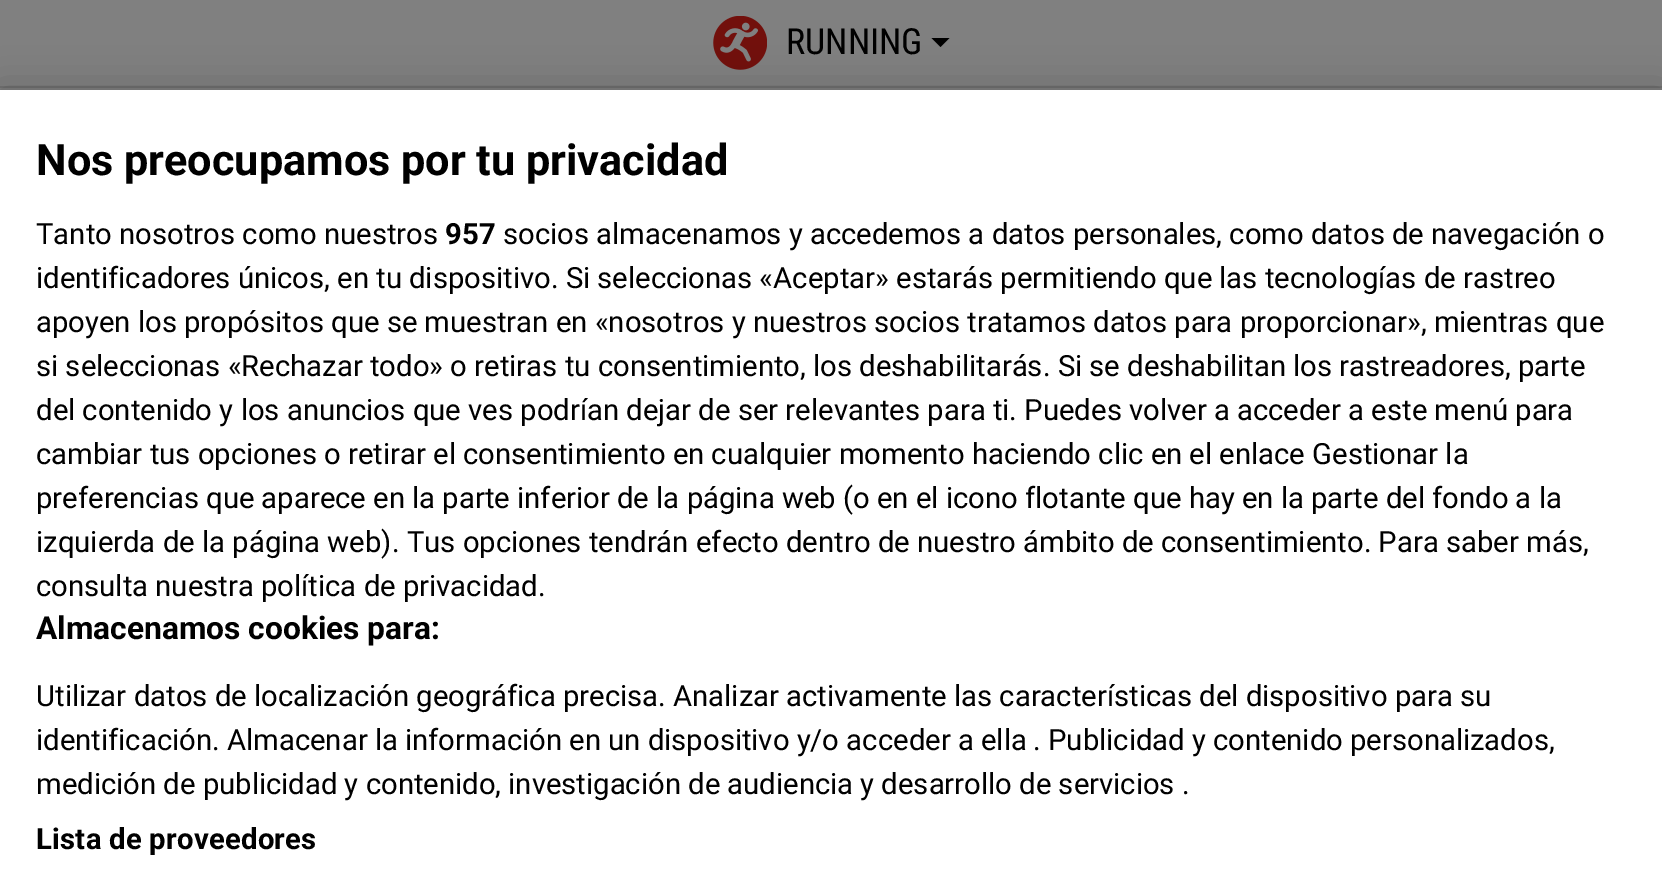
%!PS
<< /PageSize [1662 890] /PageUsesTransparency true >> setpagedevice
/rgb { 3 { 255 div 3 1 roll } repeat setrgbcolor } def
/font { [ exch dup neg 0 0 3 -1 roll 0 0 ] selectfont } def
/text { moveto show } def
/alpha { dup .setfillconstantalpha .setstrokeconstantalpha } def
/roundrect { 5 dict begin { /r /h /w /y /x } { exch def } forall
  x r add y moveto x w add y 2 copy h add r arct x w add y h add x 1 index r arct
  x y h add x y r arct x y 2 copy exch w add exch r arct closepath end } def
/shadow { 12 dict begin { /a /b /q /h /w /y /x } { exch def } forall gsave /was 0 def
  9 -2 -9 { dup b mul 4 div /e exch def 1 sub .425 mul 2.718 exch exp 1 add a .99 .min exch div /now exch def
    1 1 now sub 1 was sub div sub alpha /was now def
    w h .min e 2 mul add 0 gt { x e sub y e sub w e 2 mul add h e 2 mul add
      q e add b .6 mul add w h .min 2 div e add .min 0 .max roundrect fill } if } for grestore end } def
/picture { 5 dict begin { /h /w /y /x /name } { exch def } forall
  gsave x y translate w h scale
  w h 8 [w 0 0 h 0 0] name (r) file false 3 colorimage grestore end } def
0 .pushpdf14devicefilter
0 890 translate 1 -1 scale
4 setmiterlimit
128 128 128 rgb
0 0 1662 890 rectfill
113 113 113 rgb
0 86 1662 2 rectfill
(img_01.rgb) 713 16 54 54 picture
0 0 0 rgb
931.5 38 moveto 18 0 rlineto -9 9 rlineto closepath fill
0 90 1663 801 0 20 0.2 shadow
255 255 255 rgb
0 90 1662 800 rectfill
/RobotoCondensed-Regular 36 font
0 0 0 rgb
(RUNNING) 786 54 text
/Roboto-Bold 43.25 font
(Nos preocupamos por tu privacidad) 36 175 text
/Roboto-Regular 29.27 font
(Tanto nosotros como nuestros) 36 244 text
/Roboto-Bold 29.27 font
(957) 445 244 text
/Roboto-Regular 29.27 font
(socios almacenamos y accedemos a datos personales, como datos de navegación o) 503 244 text
(identificadores únicos, en tu dispositivo. Si seleccionas «Aceptar» estarás permitiendo que las tecnologías de rastreo) 36 288 text
(apoyen los propósitos que se muestran en «nosotros y nuestros socios tratamos datos para proporcionar», mientras que) 36 332 text
(si seleccionas «Rechazar todo» o retiras tu consentimiento, los deshabilitarás. Si se deshabilitan los rastreadores, parte) 36 376 text
(del contenido y los anuncios que ves podrían dejar de ser relevantes para ti. Puedes volver a acceder a este menú para) 36 420 text
(cambiar tus opciones o retirar el consentimiento en cualquier momento haciendo clic en el enlace Gestionar la) 36 464 text
(preferencias que aparece en la parte inferior de la página web \(o en el icono flotante que hay en la parte del fondo a la) 36 508 text
(izquierda de la página web\). Tus opciones tendrán efecto dentro de nuestro ámbito de consentimiento. Para saber más,) 36 552 text
(consulta nuestra política de privacidad.) 36 596 text
/Roboto-Bold 31.75 font
(Almacenamos cookies para:) 36 639 text
/Roboto-Regular 29.27 font
(Utilizar datos de localización geográfica precisa. Analizar activamente las características del dispositivo para su) 36 706 text
(identificación. Almacenar la información en un dispositivo y/o acceder a ella) 36 750 text
(. Publicidad y contenido personalizados,) 1033 750 text
(medición de publicidad y contenido, investigación de audiencia y desarrollo de servicios .) 36 794 text
/Roboto-Bold 29.27 font
36 849 moveto 0.25 0 (Lista de proveedores) ashow
.poppdf14devicefilter showpage
